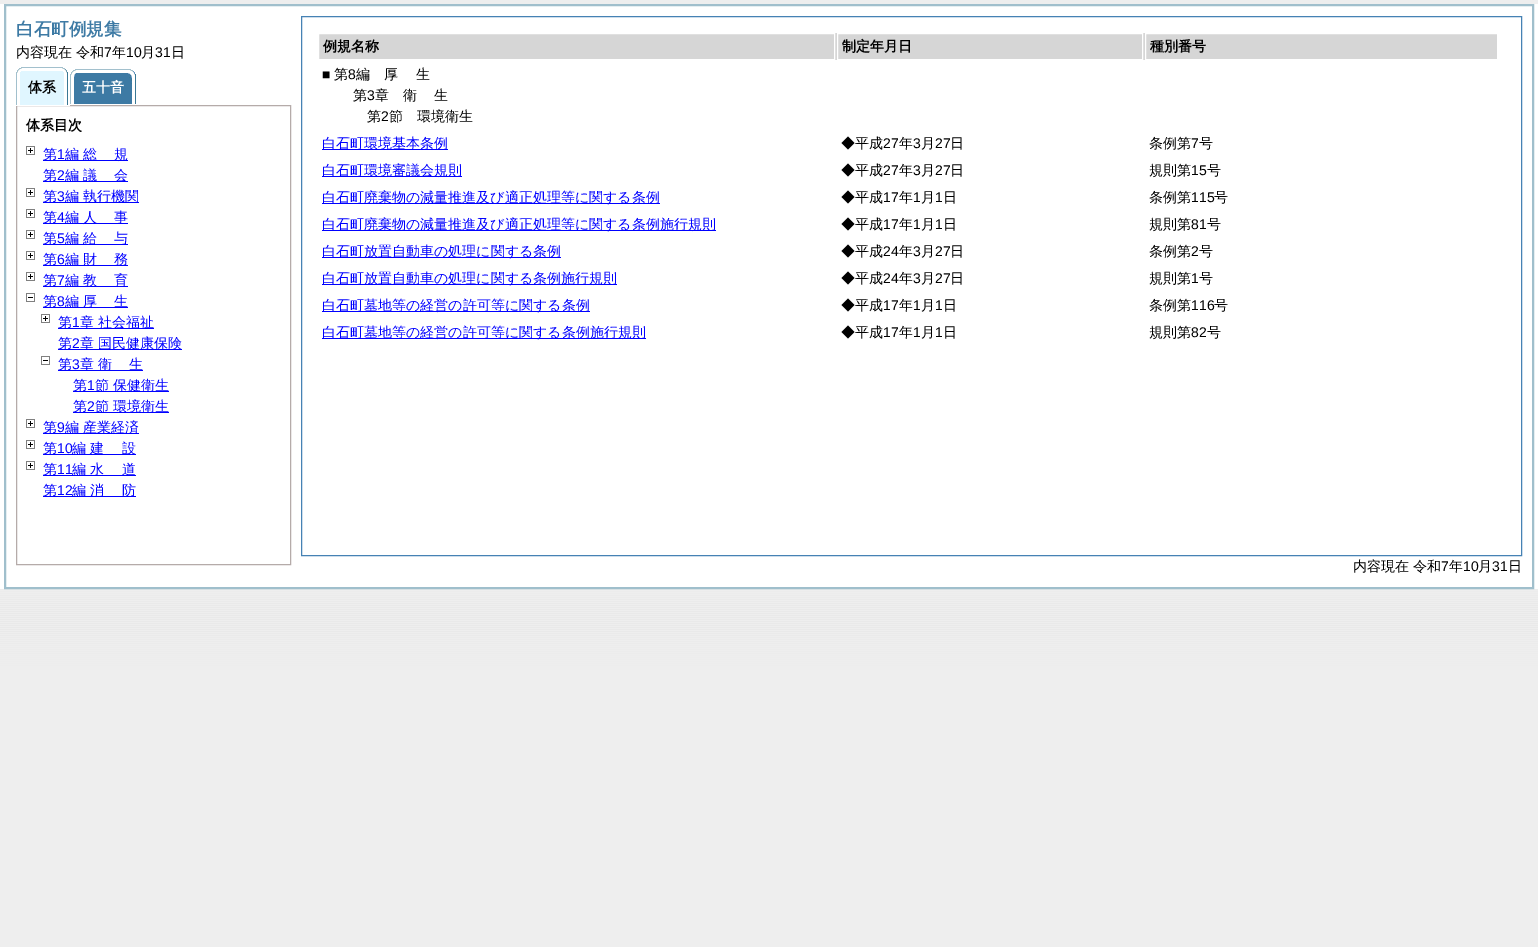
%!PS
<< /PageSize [1538 947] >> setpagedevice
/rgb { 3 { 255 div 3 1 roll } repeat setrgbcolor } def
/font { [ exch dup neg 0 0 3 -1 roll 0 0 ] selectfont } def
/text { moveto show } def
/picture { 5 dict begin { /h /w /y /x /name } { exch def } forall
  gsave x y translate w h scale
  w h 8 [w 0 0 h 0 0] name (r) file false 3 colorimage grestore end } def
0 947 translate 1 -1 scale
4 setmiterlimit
255 255 255 rgb
0 0 1538 947 rectfill
(img_01.rgb) 0 0 1538 947 picture
0 4 1538 585 rectfill
160 191 204 rgb
2 setlinewidth
5 5 1528 583 rectstroke
181 171 169 rgb
1 setlinewidth
16.5 105.5 274 459 rectstroke
255 255 255 rgb
16 105 54 1 rectfill
(img_02.rgb) 16 67 6 38 picture
(img_03.rgb) 22 67 46 38 picture
(img_04.rgb) 70 67 6 37 picture
(img_05.rgb) 76 67 60 37 picture
(img_06.rgb) 26 146 9 9 picture
0 0 255 rgb
43 160 85 1 rectfill
43 181 85 1 rectfill
(img_06.rgb) 26 188 9 9 picture
43 202 96 1 rectfill
(img_06.rgb) 26 209 9 9 picture
43 223 85 1 rectfill
(img_06.rgb) 26 230 9 9 picture
43 244 85 1 rectfill
(img_06.rgb) 26 251 9 9 picture
43 265 85 1 rectfill
(img_06.rgb) 26 272 9 9 picture
43 286 85 1 rectfill
(img_07.rgb) 26 293 9 9 picture
43 307 85 1 rectfill
(img_06.rgb) 41 314 9 9 picture
58 328 96 1 rectfill
58 349 124 1 rectfill
(img_07.rgb) 41 356 9 9 picture
58 370 85 1 rectfill
73 391 96 1 rectfill
73 412 96 1 rectfill
(img_06.rgb) 26 419 9 9 picture
43 433 96 1 rectfill
(img_06.rgb) 26 440 9 9 picture
43 454 93 1 rectfill
(img_06.rgb) 26 461 9 9 picture
43 475 93 1 rectfill
43 496 93 1 rectfill
70 130 180 rgb
301.5 16.5 1220 539 rectstroke
214 214 214 rgb
319 33 1178 27 rectfill
255 255 255 rgb
318.5 33.5 516 26 rectstroke
837.5 33.5 305 26 rectstroke
1145.5 33.5 352 26 rectstroke
0 0 255 rgb
322 149 126 1 rectfill
322 176 140 1 rectfill
322 203 338 1 rectfill
322 230 394 1 rectfill
322 257 239 1 rectfill
322 284 295 1 rectfill
322 311 268 1 rectfill
322 338 324 1 rectfill
/WenQuanYiZenHei-Bold 17.5 font
61 122 164 rgb
(白石町例規集) 16 35 text
/WenQuanYiZenHei-Medium 14 font
0 0 0 rgb
(内容現在 令和) 16 57 text
/LiberationSans-Regular 14 font
(7) 104 57 text
/WenQuanYiZenHei-Medium 14 font
(年) 112 57 text
/LiberationSans-Regular 14 font
(10) 126 57 text
/WenQuanYiZenHei-Medium 14 font
(月) 141 57 text
/LiberationSans-Regular 14 font
(31) 155 57 text
/WenQuanYiZenHei-Medium 14 font
(日) 171 57 text
/WenQuanYiZenHei-Bold 14 font
(体系) 28 92 text
255 255 255 rgb
(五十音) 82 92 text
0 0 0 rgb
(体系目次) 26 130 text
/WenQuanYiZenHei-Medium 14 font
0 0 255 rgb
(第) 43 159 text
/LiberationSans-Regular 14 font
(1) 57 159 text
/WenQuanYiZenHei-Medium 14 font
(編) 65 159 text
83 159 moveto 18 0 (総) ashow
(規) 114 159 text
(第) 43 180 text
/LiberationSans-Regular 14 font
(2) 57 180 text
/WenQuanYiZenHei-Medium 14 font
(編) 65 180 text
83 180 moveto 18 0 (議) ashow
(会) 114 180 text
(第) 43 201 text
/LiberationSans-Regular 14 font
(3) 57 201 text
/WenQuanYiZenHei-Medium 14 font
(編 執行機関) 65 201 text
(第) 43 222 text
/LiberationSans-Regular 14 font
(4) 57 222 text
/WenQuanYiZenHei-Medium 14 font
(編) 65 222 text
83 222 moveto 18 0 (人) ashow
(事) 114 222 text
(第) 43 243 text
/LiberationSans-Regular 14 font
(5) 57 243 text
/WenQuanYiZenHei-Medium 14 font
(編) 65 243 text
83 243 moveto 18 0 (給) ashow
(与) 114 243 text
(第) 43 264 text
/LiberationSans-Regular 14 font
(6) 57 264 text
/WenQuanYiZenHei-Medium 14 font
(編) 65 264 text
83 264 moveto 18 0 (財) ashow
(務) 114 264 text
(第) 43 285 text
/LiberationSans-Regular 14 font
(7) 57 285 text
/WenQuanYiZenHei-Medium 14 font
(編) 65 285 text
83 285 moveto 18 0 (教) ashow
(育) 114 285 text
(第) 43 306 text
/LiberationSans-Regular 14 font
(8) 57 306 text
/WenQuanYiZenHei-Medium 14 font
(編) 65 306 text
83 306 moveto 18 0 (厚) ashow
(生) 114 306 text
(第) 58 327 text
/LiberationSans-Regular 14 font
(1) 72 327 text
/WenQuanYiZenHei-Medium 14 font
(章 社会福祉) 80 327 text
(第) 58 348 text
/LiberationSans-Regular 14 font
(2) 72 348 text
/WenQuanYiZenHei-Medium 14 font
(章 国民健康保険) 80 348 text
(第) 58 369 text
/LiberationSans-Regular 14 font
(3) 72 369 text
/WenQuanYiZenHei-Medium 14 font
(章) 80 369 text
98 369 moveto 18 0 (衛) ashow
(生) 129 369 text
(第) 73 390 text
/LiberationSans-Regular 14 font
(1) 87 390 text
/WenQuanYiZenHei-Medium 14 font
(節 保健衛生) 95 390 text
(第) 73 411 text
/LiberationSans-Regular 14 font
(2) 87 411 text
/WenQuanYiZenHei-Medium 14 font
(節 環境衛生) 95 411 text
(第) 43 432 text
/LiberationSans-Regular 14 font
(9) 57 432 text
/WenQuanYiZenHei-Medium 14 font
(編 産業経済) 65 432 text
(第) 43 453 text
/LiberationSans-Regular 14 font
(10) 57 453 text
/WenQuanYiZenHei-Medium 14 font
(編) 72 453 text
90 453 moveto 18 0 (建) ashow
(設) 122 453 text
(第) 43 474 text
/LiberationSans-Regular 14 font
(11) 57 474 text
/WenQuanYiZenHei-Medium 14 font
(編) 72 474 text
90 474 moveto 18 0 (水) ashow
(道) 122 474 text
(第) 43 495 text
/LiberationSans-Regular 14 font
(12) 57 495 text
/WenQuanYiZenHei-Medium 14 font
(編) 72 495 text
90 495 moveto 18 0 (消) ashow
(防) 122 495 text
/WenQuanYiZenHei-Bold 14 font
0 0 0 rgb
(例規名称) 323 51 text
(制定年月日) 842 51 text
(種別番号) 1150 51 text
/LiberationSans-Regular 14 font
(■) 322 79 text
/WenQuanYiZenHei-Medium 14 font
(第) 334 79 text
/LiberationSans-Regular 14 font
(8) 348 79 text
/WenQuanYiZenHei-Medium 14 font
(編) 356 79 text
384 79 moveto 18 0 (厚) ashow
(生) 416 79 text
(第) 353 100 text
/LiberationSans-Regular 14 font
(3) 367 100 text
/WenQuanYiZenHei-Medium 14 font
(章) 375 100 text
403 100 moveto 18 0 (衛) ashow
(生) 434 100 text
(第) 367 121 text
/LiberationSans-Regular 14 font
(2) 381 121 text
/WenQuanYiZenHei-Medium 14 font
(節　環境衛生) 389 121 text
0 0 255 rgb
(白石町環境基本条例) 322 148 text
0 0 0 rgb
(◆平成) 841 148 text
/LiberationSans-Regular 14 font
(27) 883 148 text
/WenQuanYiZenHei-Medium 14 font
(年) 899 148 text
/LiberationSans-Regular 14 font
(3) 913 148 text
/WenQuanYiZenHei-Medium 14 font
(月) 921 148 text
/LiberationSans-Regular 14 font
(27) 935 148 text
/WenQuanYiZenHei-Medium 14 font
(日) 950 148 text
(条例第) 1149 148 text
/LiberationSans-Regular 14 font
(7) 1191 148 text
/WenQuanYiZenHei-Medium 14 font
(号) 1199 148 text
0 0 255 rgb
(白石町環境審議会規則) 322 175 text
0 0 0 rgb
(◆平成) 841 175 text
/LiberationSans-Regular 14 font
(27) 883 175 text
/WenQuanYiZenHei-Medium 14 font
(年) 899 175 text
/LiberationSans-Regular 14 font
(3) 913 175 text
/WenQuanYiZenHei-Medium 14 font
(月) 921 175 text
/LiberationSans-Regular 14 font
(27) 935 175 text
/WenQuanYiZenHei-Medium 14 font
(日) 950 175 text
(規則第) 1149 175 text
/LiberationSans-Regular 14 font
(15) 1191 175 text
/WenQuanYiZenHei-Medium 14 font
(号) 1207 175 text
0 0 255 rgb
(白石町廃棄物の減量推進及び適正処理等に関する条例) 322 202 text
0 0 0 rgb
(◆平成) 841 202 text
/LiberationSans-Regular 14 font
(17) 883 202 text
/WenQuanYiZenHei-Medium 14 font
(年) 899 202 text
/LiberationSans-Regular 14 font
(1) 913 202 text
/WenQuanYiZenHei-Medium 14 font
(月) 921 202 text
/LiberationSans-Regular 14 font
(1) 935 202 text
/WenQuanYiZenHei-Medium 14 font
(日) 943 202 text
(条例第) 1149 202 text
/LiberationSans-Regular 14 font
(115) 1191 202 text
/WenQuanYiZenHei-Medium 14 font
(号) 1214 202 text
0 0 255 rgb
(白石町廃棄物の減量推進及び適正処理等に関する条例施行規則) 322 229 text
0 0 0 rgb
(◆平成) 841 229 text
/LiberationSans-Regular 14 font
(17) 883 229 text
/WenQuanYiZenHei-Medium 14 font
(年) 899 229 text
/LiberationSans-Regular 14 font
(1) 913 229 text
/WenQuanYiZenHei-Medium 14 font
(月) 921 229 text
/LiberationSans-Regular 14 font
(1) 935 229 text
/WenQuanYiZenHei-Medium 14 font
(日) 943 229 text
(規則第) 1149 229 text
/LiberationSans-Regular 14 font
(81) 1191 229 text
/WenQuanYiZenHei-Medium 14 font
(号) 1207 229 text
0 0 255 rgb
(白石町放置自動車の処理に関する条例) 322 256 text
0 0 0 rgb
(◆平成) 841 256 text
/LiberationSans-Regular 14 font
(24) 883 256 text
/WenQuanYiZenHei-Medium 14 font
(年) 899 256 text
/LiberationSans-Regular 14 font
(3) 913 256 text
/WenQuanYiZenHei-Medium 14 font
(月) 921 256 text
/LiberationSans-Regular 14 font
(27) 935 256 text
/WenQuanYiZenHei-Medium 14 font
(日) 950 256 text
(条例第) 1149 256 text
/LiberationSans-Regular 14 font
(2) 1191 256 text
/WenQuanYiZenHei-Medium 14 font
(号) 1199 256 text
0 0 255 rgb
(白石町放置自動車の処理に関する条例施行規則) 322 283 text
0 0 0 rgb
(◆平成) 841 283 text
/LiberationSans-Regular 14 font
(24) 883 283 text
/WenQuanYiZenHei-Medium 14 font
(年) 899 283 text
/LiberationSans-Regular 14 font
(3) 913 283 text
/WenQuanYiZenHei-Medium 14 font
(月) 921 283 text
/LiberationSans-Regular 14 font
(27) 935 283 text
/WenQuanYiZenHei-Medium 14 font
(日) 950 283 text
(規則第) 1149 283 text
/LiberationSans-Regular 14 font
(1) 1191 283 text
/WenQuanYiZenHei-Medium 14 font
(号) 1199 283 text
0 0 255 rgb
(白石町墓地等の経営の許可等に関する条例) 322 310 text
0 0 0 rgb
(◆平成) 841 310 text
/LiberationSans-Regular 14 font
(17) 883 310 text
/WenQuanYiZenHei-Medium 14 font
(年) 899 310 text
/LiberationSans-Regular 14 font
(1) 913 310 text
/WenQuanYiZenHei-Medium 14 font
(月) 921 310 text
/LiberationSans-Regular 14 font
(1) 935 310 text
/WenQuanYiZenHei-Medium 14 font
(日) 943 310 text
(条例第) 1149 310 text
/LiberationSans-Regular 14 font
(116) 1191 310 text
/WenQuanYiZenHei-Medium 14 font
(号) 1214 310 text
0 0 255 rgb
(白石町墓地等の経営の許可等に関する条例施行規則) 322 337 text
0 0 0 rgb
(◆平成) 841 337 text
/LiberationSans-Regular 14 font
(17) 883 337 text
/WenQuanYiZenHei-Medium 14 font
(年) 899 337 text
/LiberationSans-Regular 14 font
(1) 913 337 text
/WenQuanYiZenHei-Medium 14 font
(月) 921 337 text
/LiberationSans-Regular 14 font
(1) 935 337 text
/WenQuanYiZenHei-Medium 14 font
(日) 943 337 text
(規則第) 1149 337 text
/LiberationSans-Regular 14 font
(82) 1191 337 text
/WenQuanYiZenHei-Medium 14 font
(号) 1207 337 text
(内容現在 令和) 1353 571 text
/LiberationSans-Regular 14 font
(7) 1441 571 text
/WenQuanYiZenHei-Medium 14 font
(年) 1449 571 text
/LiberationSans-Regular 14 font
(10) 1463 571 text
/WenQuanYiZenHei-Medium 14 font
(月) 1478 571 text
/LiberationSans-Regular 14 font
(31) 1492 571 text
/WenQuanYiZenHei-Medium 14 font
(日) 1508 571 text
showpage
